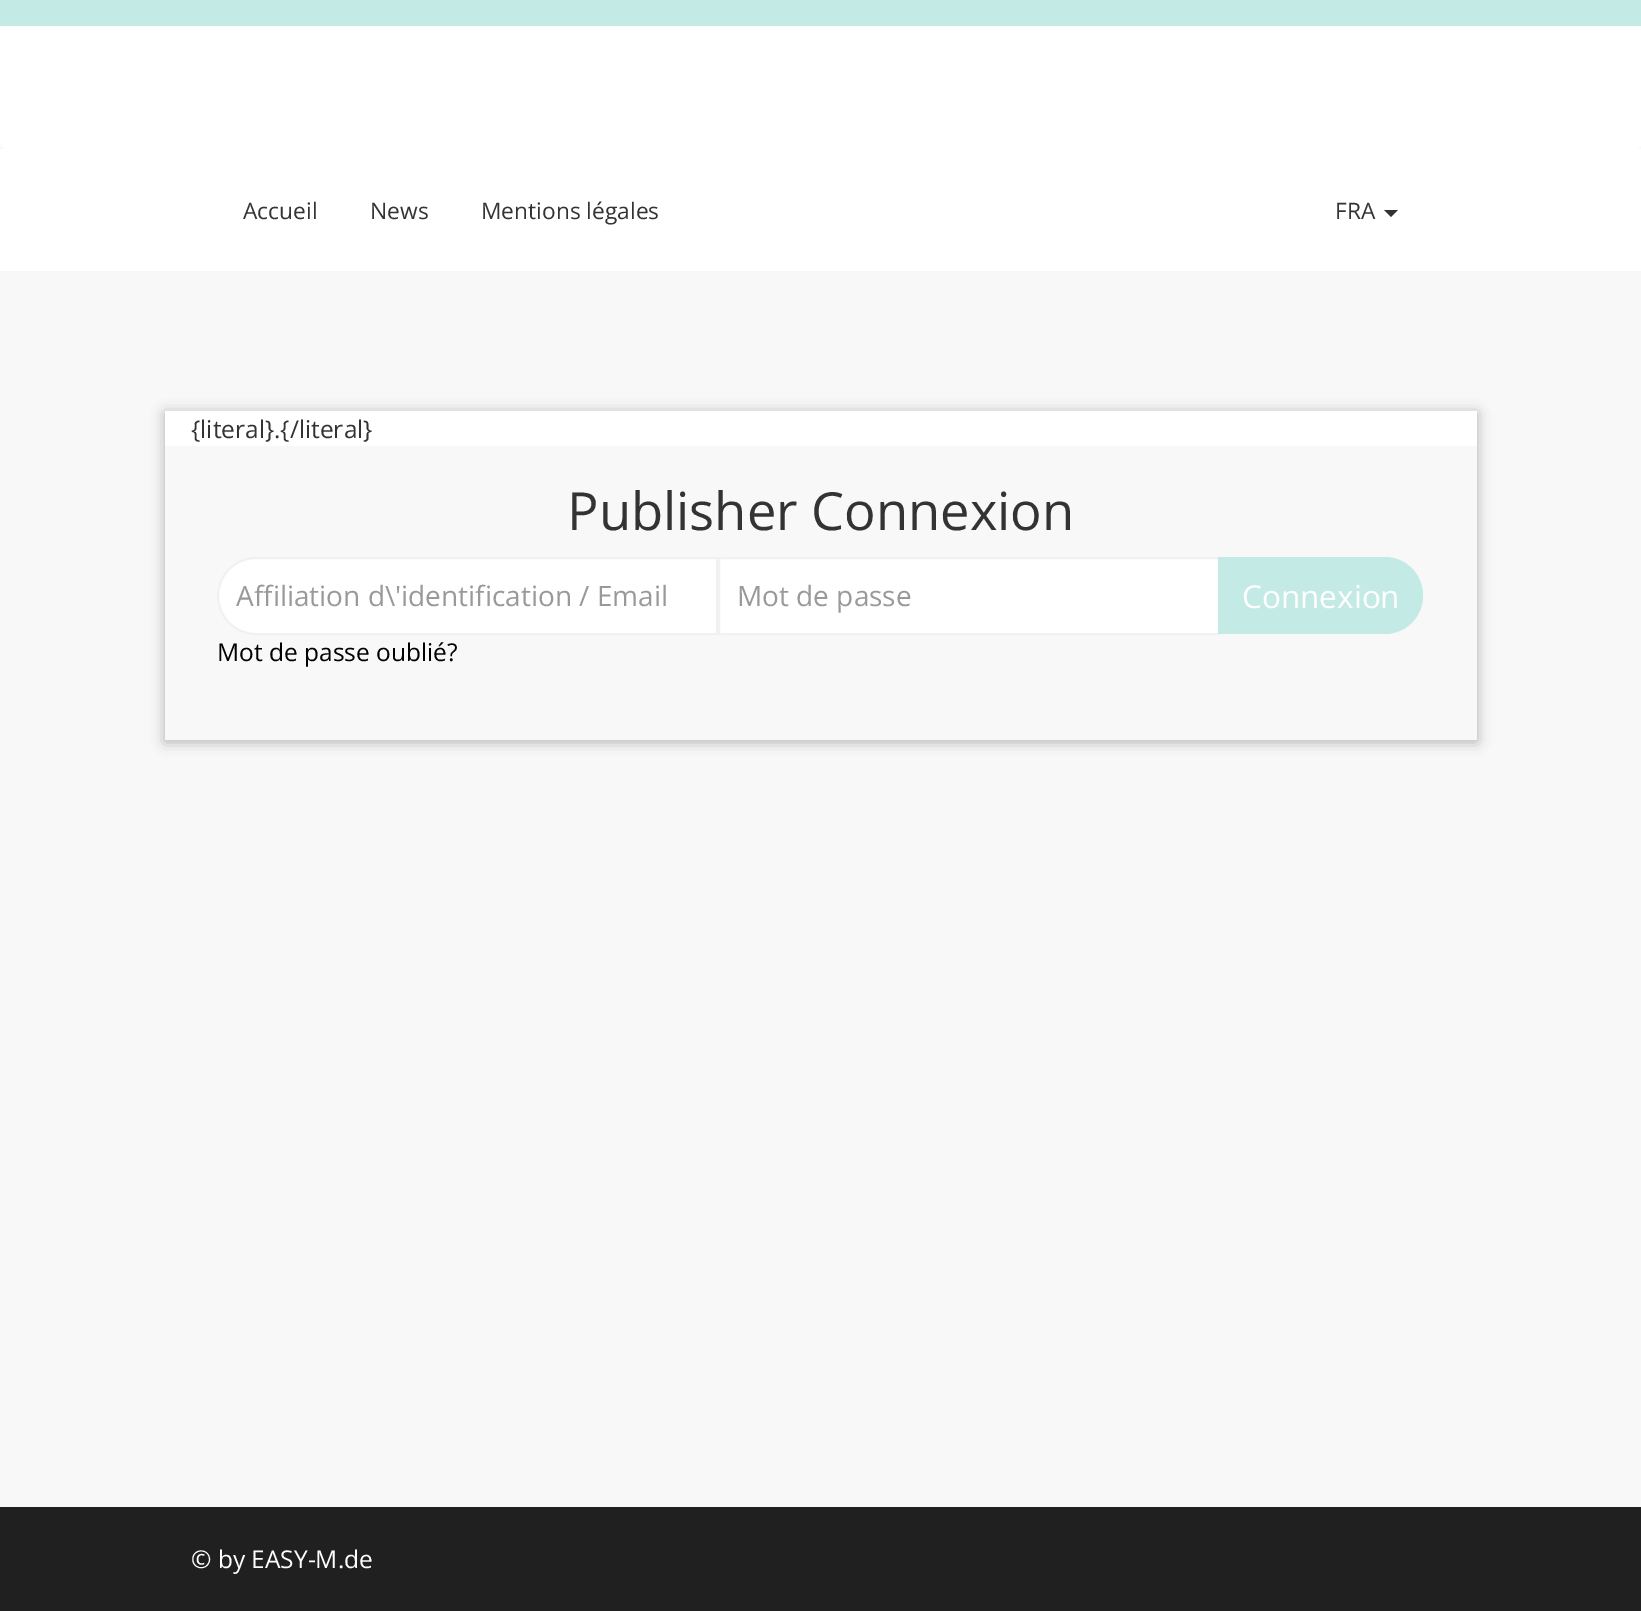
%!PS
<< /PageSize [1641 1611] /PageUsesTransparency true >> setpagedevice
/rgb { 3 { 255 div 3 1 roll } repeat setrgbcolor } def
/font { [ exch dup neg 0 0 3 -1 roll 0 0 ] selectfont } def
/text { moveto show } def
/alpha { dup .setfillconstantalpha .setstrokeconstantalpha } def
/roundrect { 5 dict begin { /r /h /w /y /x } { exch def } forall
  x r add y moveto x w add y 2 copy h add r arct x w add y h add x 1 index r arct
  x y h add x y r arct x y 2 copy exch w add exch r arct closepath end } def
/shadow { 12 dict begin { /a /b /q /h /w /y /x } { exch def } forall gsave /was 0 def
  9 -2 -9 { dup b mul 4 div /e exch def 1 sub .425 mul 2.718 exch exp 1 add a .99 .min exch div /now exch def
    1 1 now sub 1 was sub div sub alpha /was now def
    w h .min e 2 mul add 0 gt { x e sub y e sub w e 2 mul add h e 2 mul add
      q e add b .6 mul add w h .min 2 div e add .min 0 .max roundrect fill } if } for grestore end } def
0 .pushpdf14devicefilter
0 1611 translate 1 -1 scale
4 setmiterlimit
248 248 248 rgb
0 0 1641 1611 rectfill
255 255 255 rgb
0 0 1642 149 7 roundrect fill
195 234 228 rgb
0 0 1641 26 rectfill
255 255 255 rgb
0 149 1641 122 rectfill
51 51 51 rgb
1384 210 moveto 14 0 rlineto -7 7 rlineto closepath fill
gsave
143 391 moveto 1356 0 rlineto 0 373 rlineto -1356 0 rlineto closepath 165 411 moveto 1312 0 rlineto 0 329 rlineto -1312 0 rlineto closepath eoclip newpath
0 0 0 rgb
165 413 1312 329 0 7 0.3 shadow
grestore
255 255 255 rgb
165 411 1312 35 rectfill
256 558 moveto 461 0 rlineto 0 76 rlineto -461 0 rlineto -21 0 -38 -17 -38 -38 rcurveto 0 -21 17 -38 38 -38 rcurveto closepath gsave fill grestore
241 241 241 rgb
2 setlinewidth
stroke
255 255 255 rgb
719 558 moveto 500 0 rlineto 0 76 rlineto -500 0 rlineto closepath gsave fill grestore
241 241 241 rgb
stroke
195 234 228 rgb
1218 557 moveto 166.5 0 rlineto 21.5 0 38.5 17 38.5 38.5 rcurveto 0 21.5 -17 38.5 -38.5 38.5 rcurveto -166.5 0 rlineto closepath fill
32 32 32 rgb
0 1507 1641 104 rectfill
/OpenSans-Regular 22.75 font
51 51 51 rgb
(Accueil) 243 219 text
(News) 370 219 text
(Mentions légales) 481 219 text
(FRA) 1335 219 text
/OpenSans-Regular 24.5 font
({literal}.{/literal}) 191 438 text
/OpenSans-Regular 52.5 font
(Publisher Connexion) 567 530 text
/OpenSans-Regular 28 font
153 153 153 rgb
(Affiliation d\\'identification / Email) 236 606 text
(Mot de passe) 737 606 text
/OpenSans-Regular 31.5 font
255 255 255 rgb
(Connexion) 1242 608 text
/OpenSans-Regular 24.5 font
0 0 0 rgb
(Mot de passe oublié?) 217 661 text
255 255 255 rgb
(© by EASY-M.de) 191 1568 text
.poppdf14devicefilter showpage
